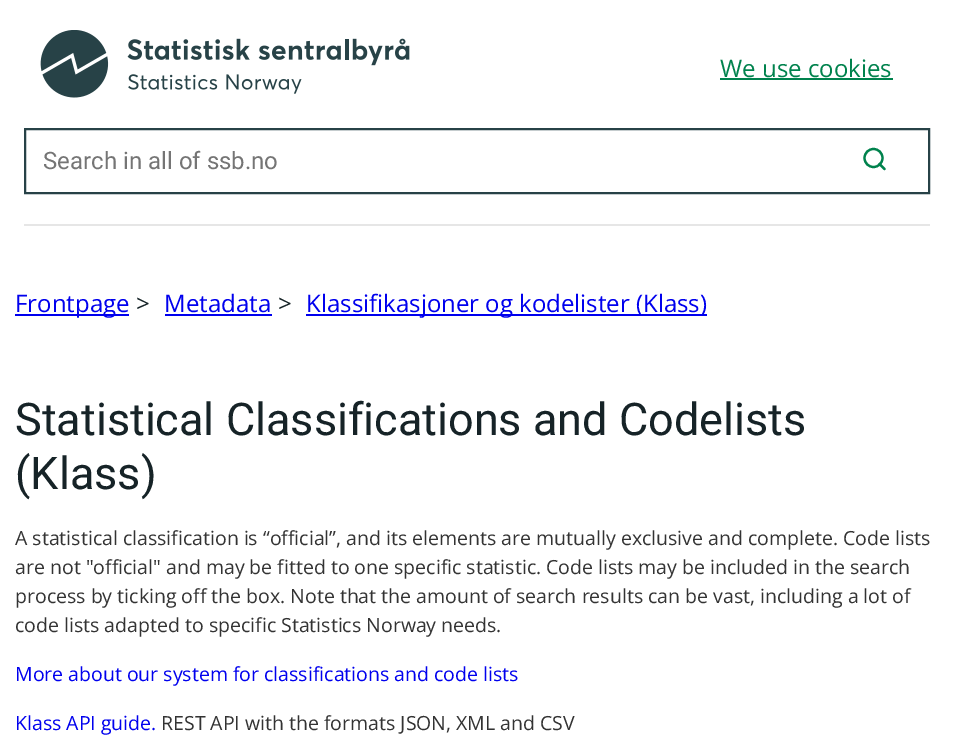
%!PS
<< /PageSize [953 735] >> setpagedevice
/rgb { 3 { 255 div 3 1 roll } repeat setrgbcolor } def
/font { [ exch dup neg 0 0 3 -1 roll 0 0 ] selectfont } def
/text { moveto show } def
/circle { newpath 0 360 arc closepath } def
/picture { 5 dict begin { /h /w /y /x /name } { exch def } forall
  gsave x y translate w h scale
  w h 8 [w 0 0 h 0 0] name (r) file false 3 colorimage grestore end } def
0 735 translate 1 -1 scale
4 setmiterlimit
255 255 255 rgb
0 0 953 735 rectfill
(img_01.rgb) 40 30 370 68 picture
0 130 77 rgb
720 78 173 2 rectfill
39 66 71 rgb
2 setlinewidth
25 129 904 64 rectstroke
0 130 77 rgb
2.2 setlinewidth
873.5 158 9 circle stroke
1 setlinecap
1 setlinejoin
884.5 169 moveto -5 -5 rlineto stroke
230 230 230 rgb
24 224 906 2 rectfill
0 0 238 rgb
15 314 114 2 rectfill
165 314 107 2 rectfill
306 314 401 2 rectfill
/OpenSans-Regular 24 font
0 130 77 rgb
(We use cookies) 720 77 text
/Roboto-Regular 24 font
117 117 117 rgb
(Search in all of ssb.no) 43 169 text
/OpenSans-Regular 24 font
0 0 238 rgb
(Frontpage) 15 312 text
22 35 39 rgb
(>) 136 312 text
0 0 238 rgb
(Metadata) 164 312 text
22 35 39 rgb
(>) 278 312 text
0 0 238 rgb
(Klassifikasjoner og kodelister \(Klass\)) 306 312 text
/Roboto-Regular 45 font
22 35 39 rgb
(Statistical Classifications and Codelists) 15 435 text
(\(Klass\)) 15 489 text
/OpenSans-Regular 19.5 font
51 51 51 rgb
(A statistical classification is “official”, and its elements are mutually exclusive and complete. Code lists) 15 545 text
(are not "official" and may be fitted to one specific statistic. Code lists may be included in the search) 15 574 text
(process by ticking off the box. Note that the amount of search results can be vast, including a lot of) 15 603 text
(code lists adapted to specific Statistics Norway needs.) 15 632 text
0 0 238 rgb
(More about our system for classifications and code lists) 15 681 text
(Klass API guide.) 15 730 text
51 51 51 rgb
(REST API with the formats JSON, XML and CSV) 161 730 text
showpage
